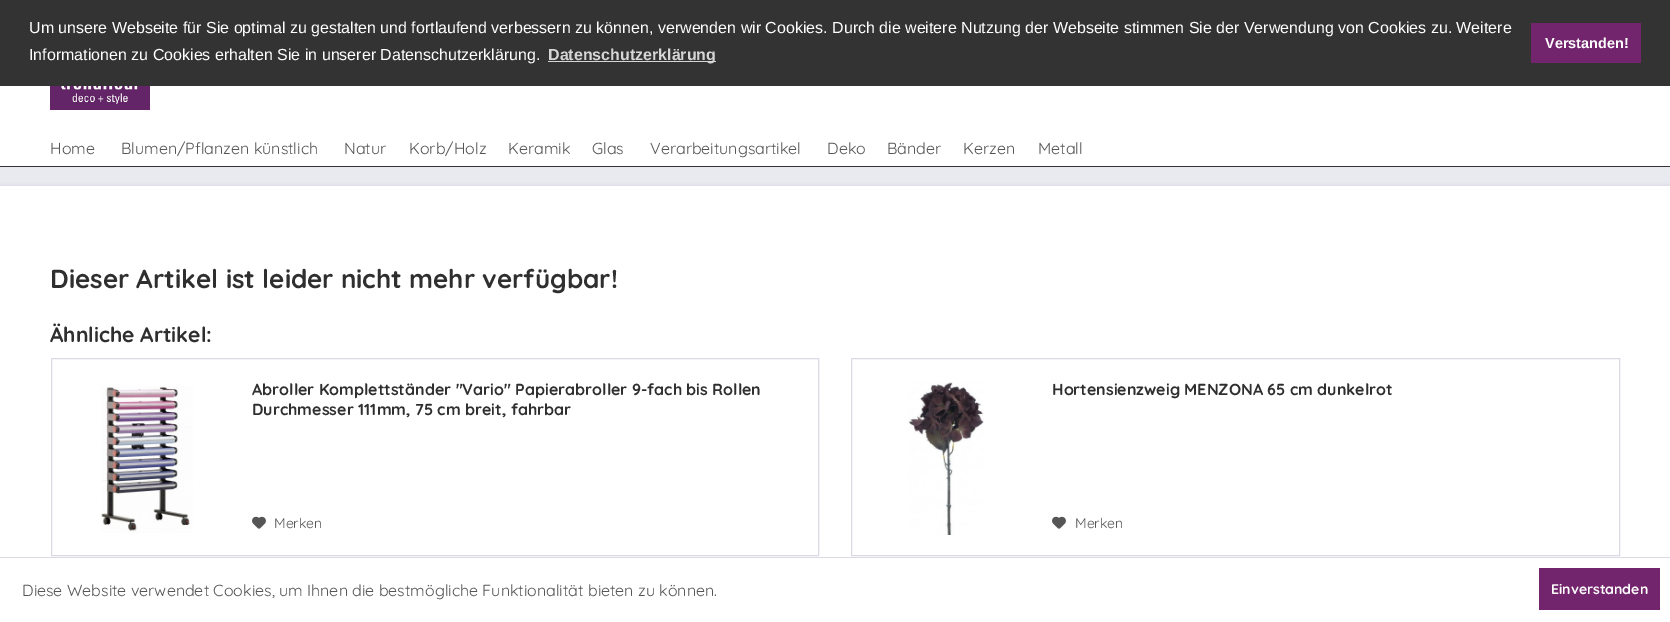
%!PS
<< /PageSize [1670 622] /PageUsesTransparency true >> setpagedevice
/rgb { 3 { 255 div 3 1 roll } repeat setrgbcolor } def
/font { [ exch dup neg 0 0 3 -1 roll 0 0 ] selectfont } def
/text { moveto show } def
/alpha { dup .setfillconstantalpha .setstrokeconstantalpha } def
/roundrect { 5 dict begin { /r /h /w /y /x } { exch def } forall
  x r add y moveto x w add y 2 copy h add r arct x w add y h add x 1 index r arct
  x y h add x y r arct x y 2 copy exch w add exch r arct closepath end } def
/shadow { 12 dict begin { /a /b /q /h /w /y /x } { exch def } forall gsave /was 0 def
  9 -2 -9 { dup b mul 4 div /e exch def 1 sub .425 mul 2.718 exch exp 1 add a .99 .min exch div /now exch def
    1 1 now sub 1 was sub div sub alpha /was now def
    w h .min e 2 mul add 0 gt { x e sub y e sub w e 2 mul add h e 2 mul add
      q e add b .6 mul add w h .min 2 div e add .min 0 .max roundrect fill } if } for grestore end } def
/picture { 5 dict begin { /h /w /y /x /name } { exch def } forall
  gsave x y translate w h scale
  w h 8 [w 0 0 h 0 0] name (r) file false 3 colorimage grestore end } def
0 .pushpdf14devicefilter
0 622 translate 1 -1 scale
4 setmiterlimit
233 233 240 rgb
0 0 1670 622 rectfill
51 51 51 rgb
0 0 1670 86 rectfill
214 214 214 rgb
548 61 168 1 rectfill
114 36 108 rgb
1531 23 110 40 rectfill
255 255 255 rgb
0 86 1670 80 rectfill
(img_01.rgb) 50 86 100 24 picture
51 51 51 rgb
0 166 1670 1 rectfill
218 218 229 rgb
-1 185 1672 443 0 2 1 shadow
255 255 255 rgb
0 186 1670 371 rectfill
218 218 229 rgb
51.5 358.5 767 197 rectstroke
(img_02.rgb) 101 386 92 147 picture
(img_03.rgb) 252 516 14 13 picture
851.5 358.5 768 197 rectstroke
(img_04.rgb) 908 382 76 153 picture
(img_03.rgb) 1052 516 14 13 picture
255 255 255 rgb
0 558 1670 64 rectfill
218 218 229 rgb
0 557 1670 1 rectfill
114 36 108 rgb
1539 568 121 42 rectfill
/LiberationSans-Regular 16 font
255 255 255 rgb
(Um unsere Webseite für Sie optimal zu gestalten und fortlaufend verbessern zu können, verwenden wir Cookies. Durch die weitere Nutzung der Webseite stimmen Sie der Verwendung von Cookies zu. Weitere) 29 33 text
(Informationen zu Cookies erhalten Sie in unserer Datenschutzerklärung.) 29 60 text
/LiberationSans-Bold 16 font
214 214 214 rgb
(Datenschutzerklärung) 548 60 text
/LiberationSans-Bold 14.5 font
255 255 255 rgb
(Verstanden!) 1545 48 text
/Quicksand-Regular 16 font
85 85 85 rgb
(Home) 50 154 text
(Blumen/Pflanzen künstlich) 121 154 text
(Natur) 344 154 text
(Korb/Holz) 409 154 text
(Keramik) 508 154 text
(Glas) 592 154 text
(Verarbeitungsartikel) 650 154 text
(Deko) 827 154 text
(Bänder) 887 154 text
(Kerzen) 963 154 text
(Metall) 1038 154 text
/Quicksand-Bold 26 font
47 47 47 rgb
(Dieser Artikel ist leider nicht mehr verfügbar!) 50 288 text
/Quicksand-Bold 21 font
(Ähnliche Artikel:) 50 342 text
/Quicksand-Bold 16 font
(Abroller Komplettständer "Vario" Papierabroller 9-fach bis Rollen) 252 395 text
(Durchmesser 111mm, 75 cm breit, fahrbar) 252 415 text
/Quicksand-Regular 14 font
85 85 85 rgb
(Merken) 274 528 text
/Quicksand-Bold 16 font
47 47 47 rgb
(Hortensienzweig MENZONA 65 cm dunkelrot) 1052 395 text
/Quicksand-Regular 14 font
85 85 85 rgb
(Merken) 1075 528 text
/Quicksand-Regular 16 font
(Diese Website verwendet Cookies, um Ihnen die bestmögliche Funktionalität bieten zu können.) 22 596 text
/Quicksand-Bold 14 font
255 255 255 rgb
(Einverstanden) 1551 594 text
.poppdf14devicefilter showpage
